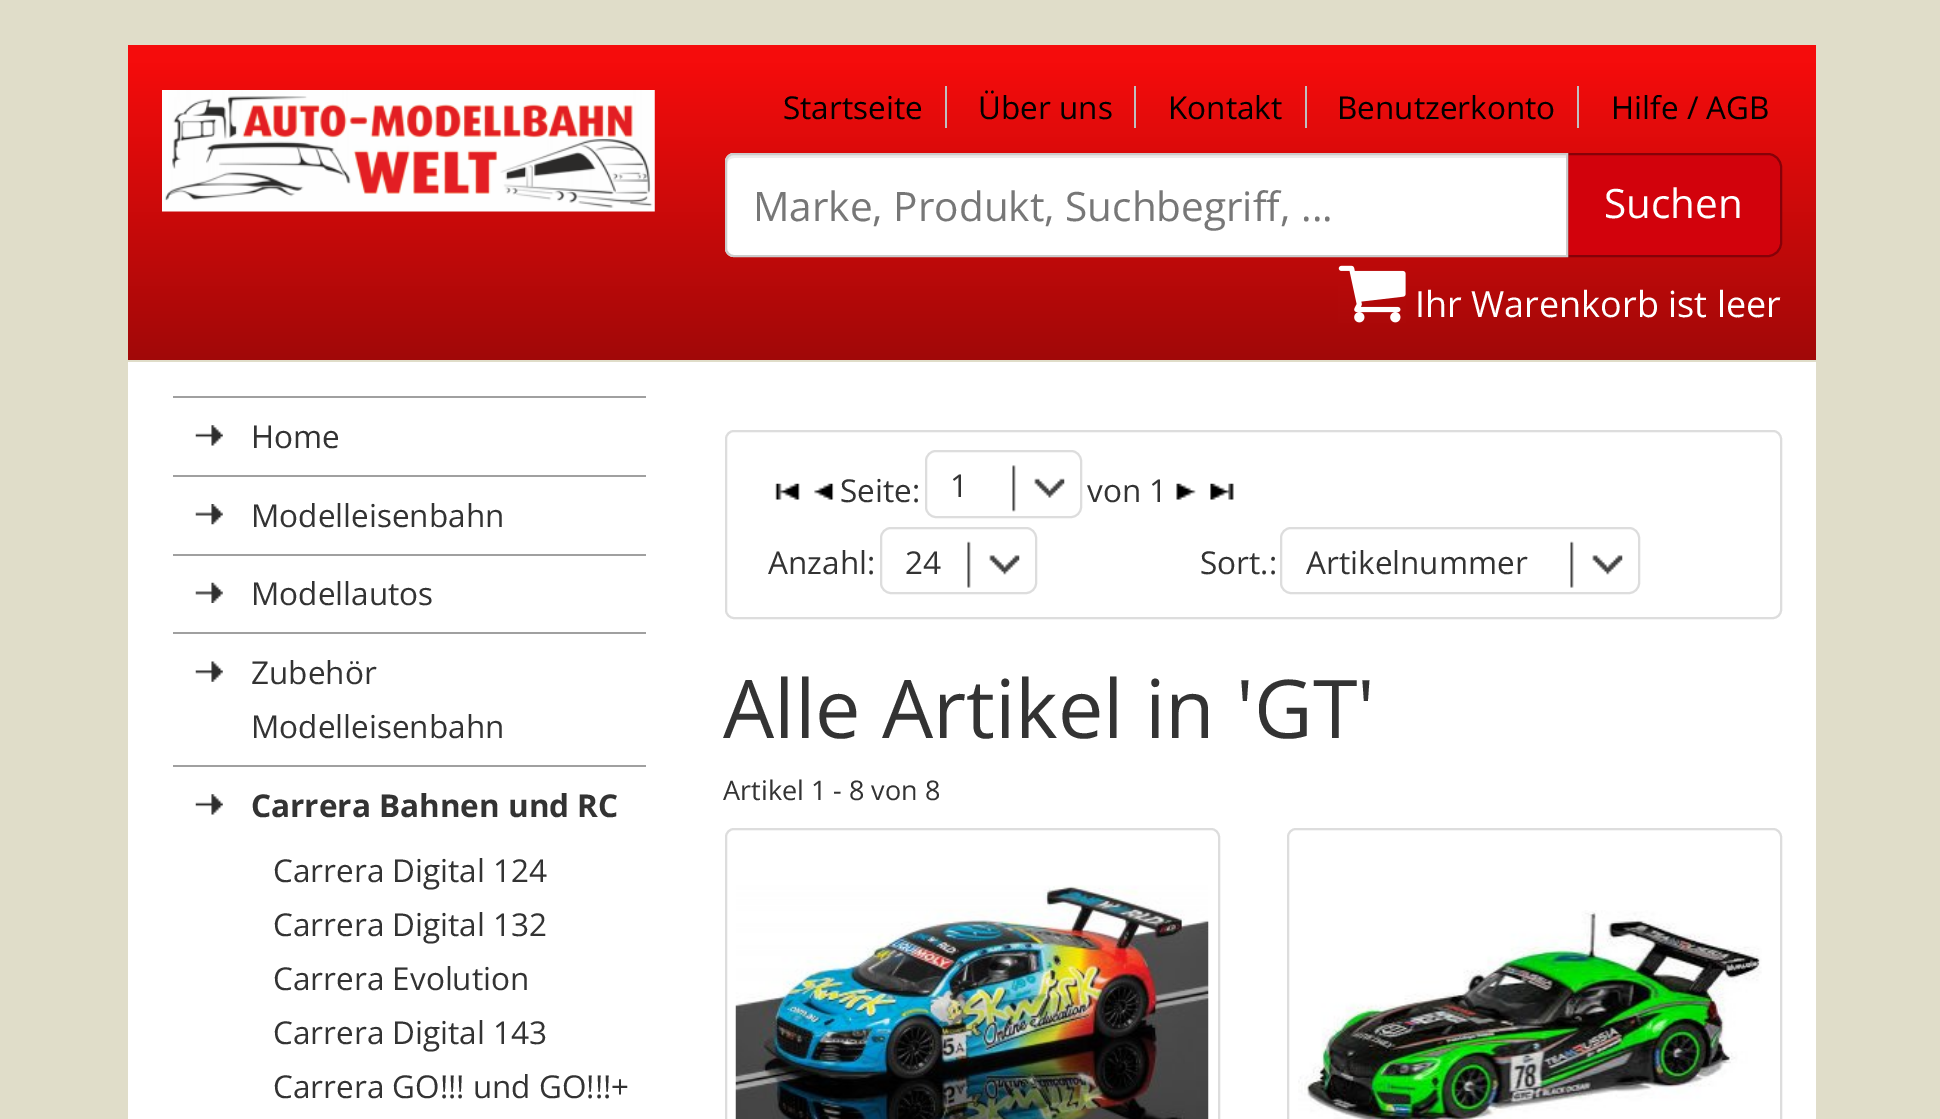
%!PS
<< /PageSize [1940 1119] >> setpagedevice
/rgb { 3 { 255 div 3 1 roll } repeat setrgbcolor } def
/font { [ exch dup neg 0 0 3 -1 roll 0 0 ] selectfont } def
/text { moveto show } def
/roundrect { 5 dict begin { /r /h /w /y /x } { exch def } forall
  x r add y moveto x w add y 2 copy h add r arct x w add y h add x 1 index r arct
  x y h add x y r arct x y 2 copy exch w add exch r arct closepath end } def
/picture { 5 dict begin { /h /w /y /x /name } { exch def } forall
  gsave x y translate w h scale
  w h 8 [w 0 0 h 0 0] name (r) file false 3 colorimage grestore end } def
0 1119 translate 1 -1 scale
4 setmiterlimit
224 221 201 rgb
0 0 1940 1119 rectfill
245 12 12 rgb
128 45 1688 18 rectfill
gsave 128 63 moveto 1688 0 rlineto 0 297 rlineto -1688 0 rlineto closepath clip newpath
<< /ShadingType 2 /ColorSpace /DeviceRGB /Coords [972 63 972 360] /Extend [true true] /Function << /FunctionType 2 /Domain [0 1] /C0 [0.961 0.047 0.047] /C1 [0.631 0.031 0.031] /N 1 >> >> shfill grestore
(img_01.rgb) 162 90 493 122 picture
192 192 192 rgb
945 86 2 42 rectfill
1134 86 2 42 rectfill
1305 86 2 42 rectfill
1577 86 2 42 rectfill
210 2 12 rgb
1567 154 moveto 201 0 rlineto 7 0 13 6 13 13 rcurveto 0 76 rlineto 0 7 -6 13 -13 13 rcurveto -201 0 rlineto closepath gsave fill grestore
134 1 8 rgb
2 setlinewidth
stroke
255 255 255 rgb
734 153 moveto 834 0 rlineto 0 104 rlineto -834 0 rlineto -5 0 -9 -4 -9 -9 rcurveto 0 -86 rlineto 0 -5 4 -9 9 -9 rcurveto closepath fill
236 236 236 rgb
734 158 moveto 832 0 rlineto 0 -3 rlineto -832 0 rlineto -4 0 -7 3 -7 7 rcurveto 0 2 rlineto 0 -3 3 -6 7 -6 rcurveto closepath fill
204 204 204 rgb
734 154 moveto 833 0 rlineto 0 102 rlineto -833 0 rlineto -4.5 0 -8 -3.5 -8 -8 rcurveto 0 -86 rlineto 0 -4.5 3.5 -8 8 -8 rcurveto closepath stroke
(img_02.rgb) 1338 265 68 58 picture
255 255 255 rgb
128 362 1688 757 rectfill
160 160 160 rgb
173 475 473 2 rectfill
(img_03.rgb) 195 425 28 21 picture
173 396 473 2 rectfill
173 554 473 2 rectfill
(img_04.rgb) 195 504 28 21 picture
173 632 473 2 rectfill
(img_05.rgb) 195 582 28 21 picture
173 765 473 2 rectfill
(img_06.rgb) 195 661 28 21 picture
(img_03.rgb) 195 794 28 21 picture
221 221 221 rgb
726 431 1055 187 8 roundrect stroke
(img_07.rgb) 775 483 25 17 picture
(img_08.rgb) 814 483 20 17 picture
926 451 155 66 10 roundrect stroke
(img_09.rgb) 1012 465 53 47 picture
(img_10.rgb) 1176 483 20 17 picture
(img_11.rgb) 1210 483 24 17 picture
881 528 155 65 10 roundrect stroke
(img_12.rgb) 967 541 53 47 picture
1281 528 358 65 10 roundrect stroke
(img_13.rgb) 1570 541 53 47 picture
726 829 493 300 8 roundrect stroke
(img_14.rgb) 735 885 474 234 picture
1288 829 493 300 8 roundrect stroke
(img_15.rgb) 1298 910 464 209 picture
/OpenSans-Regular 31.5 font
0 0 0 rgb
(Startseite) 783 119 text
(Über uns) 978 119 text
(Kontakt) 1168 119 text
(Benutzerkonto) 1337 119 text
(Hilfe / AGB) 1611 119 text
/OpenSans-Regular 40.5 font
119 119 119 rgb
(Marke, Produkt, Suchbegriff, ...) 753 221 text
255 255 255 rgb
(Suchen) 1604 218 text
/OpenSans-Regular 36 font
(Ihr Warenkorb ist leer) 1415 317 text
/OpenSans-Regular 31.5 font
51 51 51 rgb
(Home) 251 448 text
(Modelleisenbahn) 251 527 text
(Modellautos) 251 605 text
(Zubehör) 251 684 text
(Modelleisenbahn) 251 738 text
/OpenSans-Bold 31.5 font
(Carrera Bahnen und RC) 251 817 text
/OpenSans-Regular 31.5 font
(Carrera Digital 124) 273 882 text
(Carrera Digital 132) 273 936 text
(Carrera Evolution) 273 990 text
(Carrera Digital 143) 273 1044 text
(Carrera GO!!! und GO!!!+) 273 1098 text
(Seite:) 840 502 text
(1) 950 497 text
(von 1) 1087 502 text
(Anzahl:) 768 574 text
(24) 905 574 text
(Sort.:) 1200 574 text
(Artikelnummer) 1306 574 text
/OpenSans-Regular 81 font
(Alle Artikel in 'GT') 723 738 text
/OpenSans-Regular 27 font
(Artikel 1 - 8 von 8) 723 800 text
showpage
